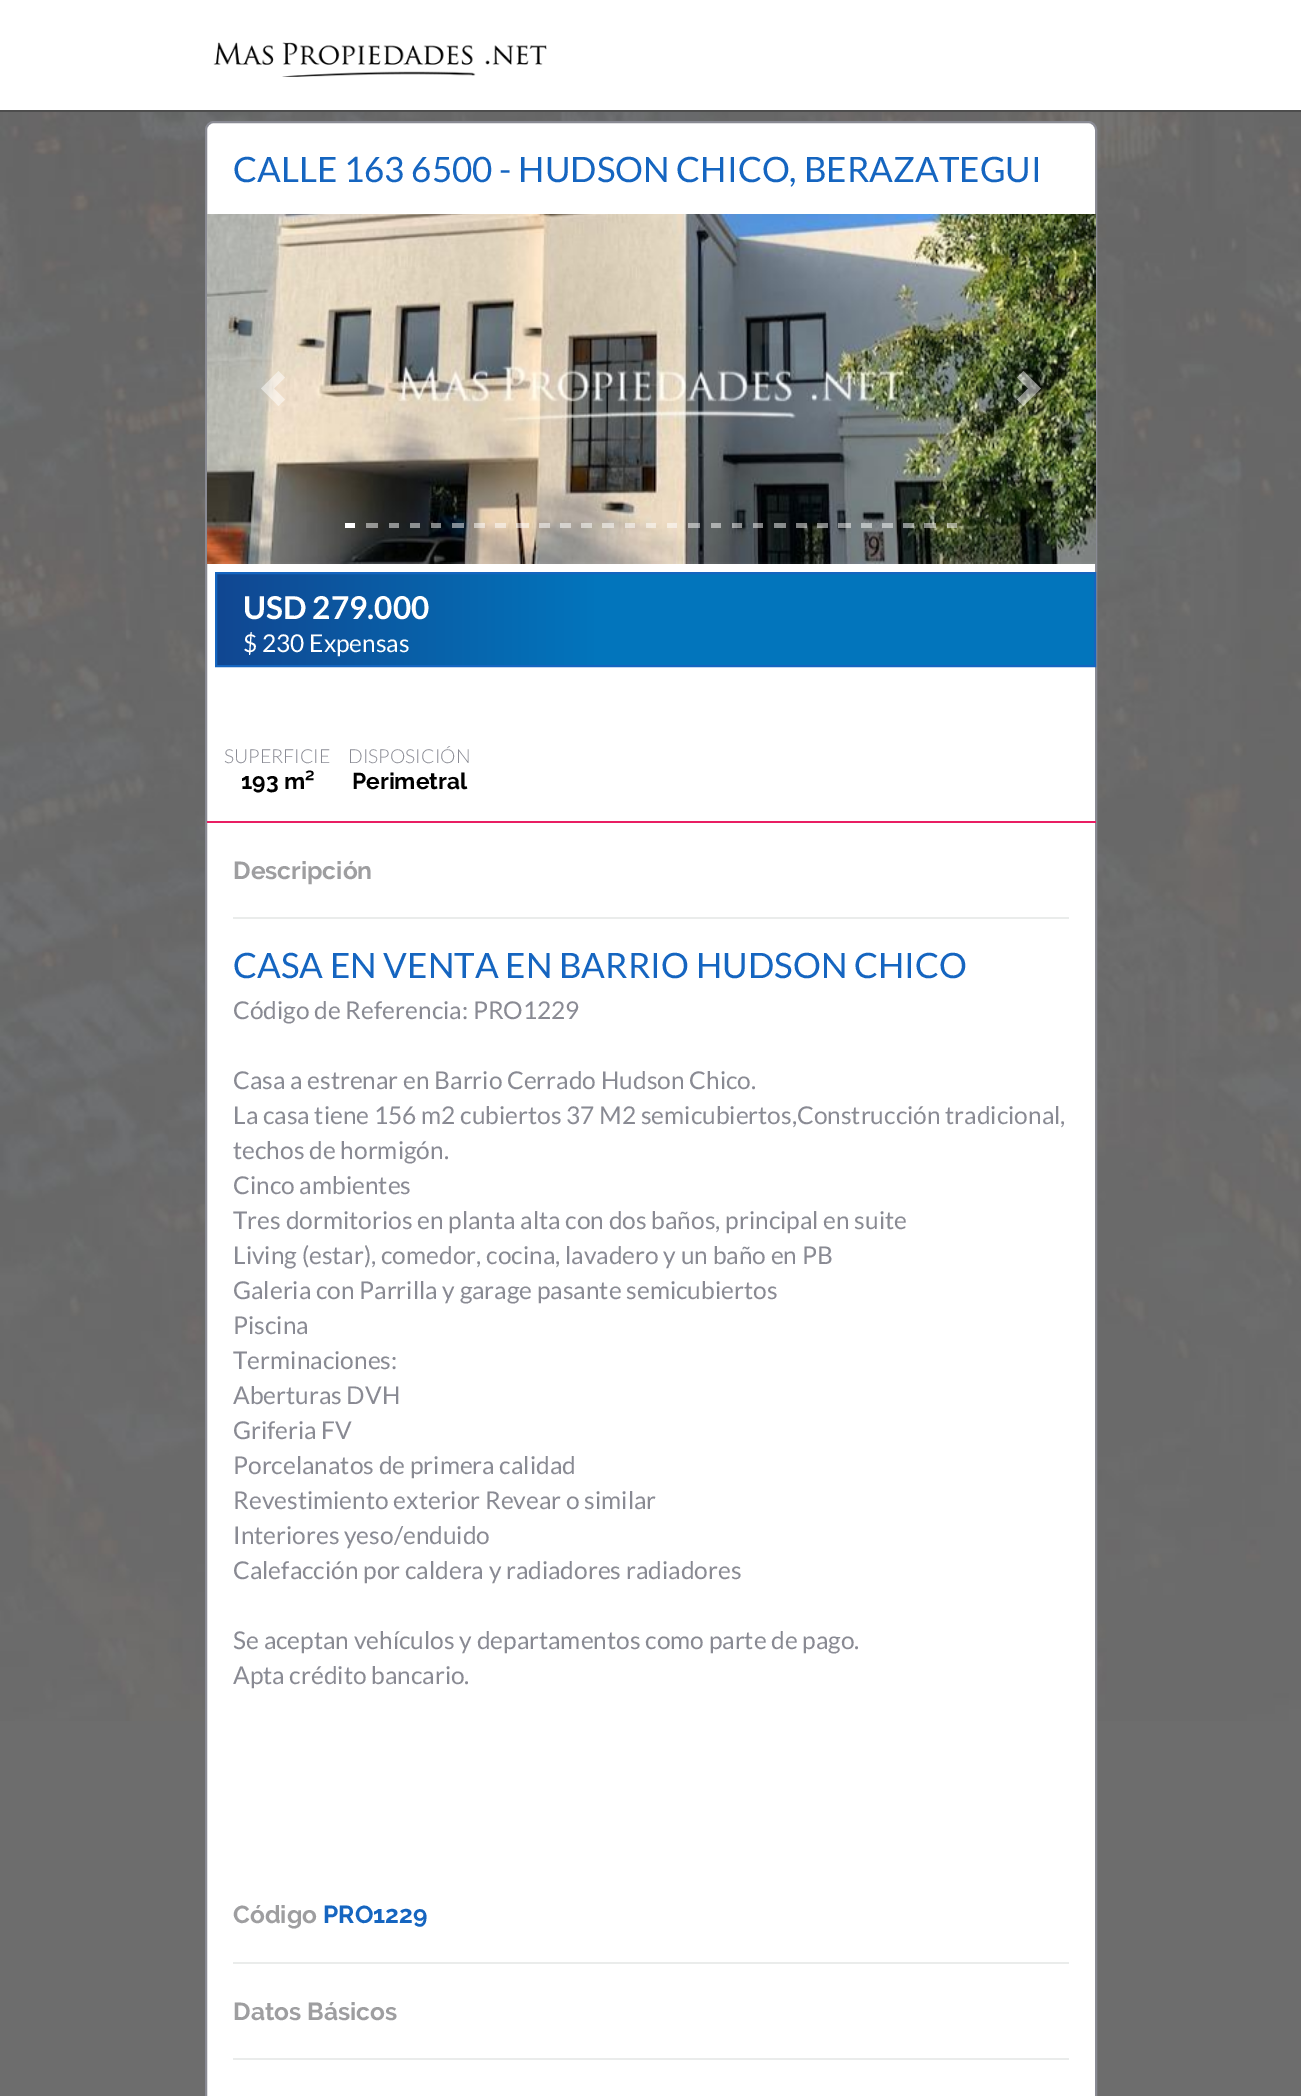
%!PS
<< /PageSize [1301 2096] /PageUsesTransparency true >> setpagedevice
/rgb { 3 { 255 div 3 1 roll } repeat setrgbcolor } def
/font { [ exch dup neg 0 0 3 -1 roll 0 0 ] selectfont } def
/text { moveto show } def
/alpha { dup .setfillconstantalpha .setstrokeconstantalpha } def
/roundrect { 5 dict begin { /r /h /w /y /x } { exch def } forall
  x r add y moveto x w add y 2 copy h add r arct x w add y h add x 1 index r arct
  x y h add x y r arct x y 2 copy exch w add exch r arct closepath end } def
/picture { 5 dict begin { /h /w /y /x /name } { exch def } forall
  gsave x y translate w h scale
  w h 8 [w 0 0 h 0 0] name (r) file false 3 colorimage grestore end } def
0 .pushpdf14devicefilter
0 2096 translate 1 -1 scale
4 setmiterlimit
255 255 255 rgb
0 0 1301 2096 rectfill
77 77 77 rgb
0 110 1301 2 rectfill
(img_01.rgb) 213 42 334 35 picture
109 109 109 rgb
0 1721 1301 375 rectfill
(img_02.rgb) 0 112 1301 1609 picture
255 255 255 rgb
206 122 890 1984 8 roundrect gsave fill grestore
137 138 147 rgb
2 setlinewidth
stroke
(img_03.rgb) 207 214 889 350 picture
0.5 alpha
255 255 255 rgb
278.5 371 moveto -17.5 17.5 rlineto 17.5 17.5 rlineto 6.5 -6.5 rlineto -11 -11 rlineto 11 -11 rlineto closepath fill
1023.5 371 moveto -6.5 6.5 rlineto 11 11 rlineto -11 11 rlineto 6.5 6.5 rlineto 17.5 -17.5 rlineto closepath fill
1 alpha
345 523 10 5 rectfill
0.5 alpha
366 523 12 5 rectfill
389 523 10 5 rectfill
410 523 10 5 rectfill
431 523 10 5 rectfill
452 523 12 5 rectfill
474 523 11 5 rectfill
495 523 11 5 rectfill
516 523 13 5 rectfill
539 523 11 5 rectfill
560 523 11 5 rectfill
581 523 11 5 rectfill
602 523 12 5 rectfill
625 523 10 5 rectfill
646 523 10 5 rectfill
667 523 10 5 rectfill
688 523 12 5 rectfill
711 523 10 5 rectfill
732 523 10 5 rectfill
753 523 10 5 rectfill
774 523 12 5 rectfill
796 523 11 5 rectfill
817 523 11 5 rectfill
838 523 13 5 rectfill
861 523 11 5 rectfill
882 523 11 5 rectfill
903 523 11 5 rectfill
924 523 12 5 rectfill
947 523 10 5 rectfill
1 alpha
gsave 217 574 moveto 877 0 rlineto 0 91 rlineto -877 0 rlineto closepath clip newpath
<< /ShadingType 2 /ColorSpace /DeviceRGB /Coords [217 620 1094 620] /Extend [true true] /Function << /FunctionType 3 /Domain [0 1] /Functions [<< /FunctionType 2 /Domain [0 1] /C0 [0.067 0.278 0.573] /C1 [0.008 0.459 0.737] /N 1 >> << /FunctionType 2 /Domain [0 1] /C0 [0.008 0.459 0.737] /C1 [0.008 0.459 0.737] /N 1 >>] /Bounds [0.43] /Encode [0 1 0 1] >> >> shfill grestore
21 101 192 rgb
216 573 879 93 rectstroke
233 30 99 rgb
207 821 889 2 rectfill
234 236 235 rgb
233 917 836 2 rectfill
233 1962 836 2 rectfill
233 2058 836 2 rectfill
/Lato-Regular 35 font
21 101 192 rgb
(CALLE 163 6500 - HUDSON CHICO, BERAZATEGUI) 233 182 text
/Lato-Bold 31.5 font
255 255 255 rgb
(USD 279.000) 243 619 text
/Lato-Regular 24.5 font
($ 230 Expensas) 243 652 text
/Lato-Light 19.25 font
137 138 147 rgb
(SUPERFICIE) 224 763 text
/Raleway-Bold 22.75 font
0 0 0 rgb
(193 m²) 241 789 text
/Lato-Light 19.25 font
137 138 147 rgb
(DISPOSICIÓN) 348 763 text
/Raleway-Bold 22.75 font
0 0 0 rgb
(Perimetral) 352 789 text
/Raleway-Bold 24.5 font
158 158 160 rgb
(Descripción) 233 879 text
/Lato-Regular 35 font
21 101 192 rgb
(CASA EN VENTA EN BARRIO HUDSON CHICO) 233 978 text
/Lato-Regular 24.5 font
137 138 147 rgb
(Código de Referencia: PRO1229) 233 1019 text
(Casa a estrenar en Barrio Cerrado Hudson Chico.) 233 1089 text
(La casa tiene 156 m2 cubiertos 37 M2 semicubiertos,Construcción tradicional,) 233 1124 text
(techos de hormigón.) 233 1159 text
(Cinco ambientes) 233 1194 text
(Tres dormitorios en planta alta con dos baños, principal en suite) 233 1229 text
(Living \(estar\), comedor, cocina, lavadero y un baño en PB) 233 1264 text
(Galeria con Parrilla y garage pasante semicubiertos) 233 1299 text
(Piscina) 233 1334 text
(Terminaciones:) 233 1369 text
(Aberturas DVH) 233 1404 text
(Griferia FV) 233 1439 text
(Porcelanatos de primera calidad) 233 1474 text
(Revestimiento exterior Revear o similar) 233 1509 text
(Interiores yeso/enduido) 233 1544 text
(Calefacción por caldera y radiadores radiadores) 233 1579 text
(Se aceptan vehículos y departamentos como parte de pago.) 233 1649 text
(Apta crédito bancario.) 233 1684 text
/Raleway-Bold 24.5 font
158 158 160 rgb
(Código) 233 1923 text
21 101 192 rgb
(PRO1229) 323 1923 text
158 158 160 rgb
(Datos Básicos) 233 2020 text
.poppdf14devicefilter showpage
